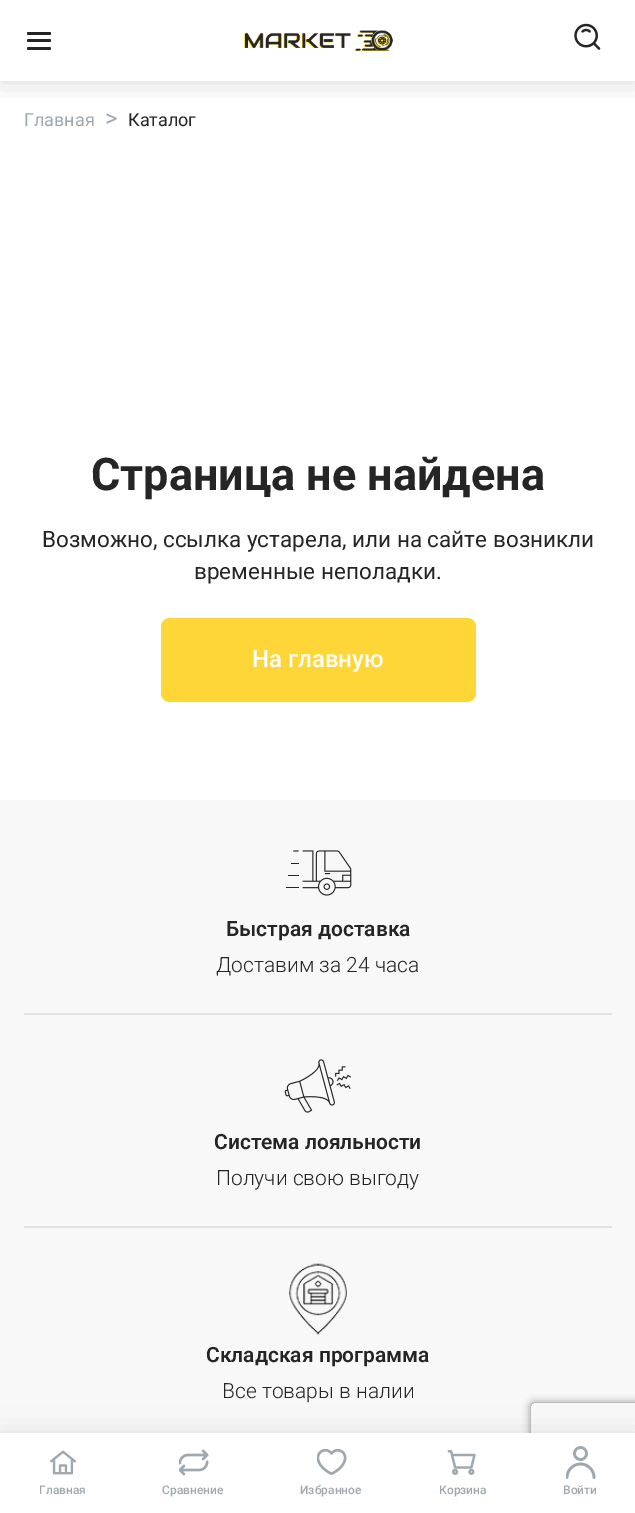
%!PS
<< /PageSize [635 1513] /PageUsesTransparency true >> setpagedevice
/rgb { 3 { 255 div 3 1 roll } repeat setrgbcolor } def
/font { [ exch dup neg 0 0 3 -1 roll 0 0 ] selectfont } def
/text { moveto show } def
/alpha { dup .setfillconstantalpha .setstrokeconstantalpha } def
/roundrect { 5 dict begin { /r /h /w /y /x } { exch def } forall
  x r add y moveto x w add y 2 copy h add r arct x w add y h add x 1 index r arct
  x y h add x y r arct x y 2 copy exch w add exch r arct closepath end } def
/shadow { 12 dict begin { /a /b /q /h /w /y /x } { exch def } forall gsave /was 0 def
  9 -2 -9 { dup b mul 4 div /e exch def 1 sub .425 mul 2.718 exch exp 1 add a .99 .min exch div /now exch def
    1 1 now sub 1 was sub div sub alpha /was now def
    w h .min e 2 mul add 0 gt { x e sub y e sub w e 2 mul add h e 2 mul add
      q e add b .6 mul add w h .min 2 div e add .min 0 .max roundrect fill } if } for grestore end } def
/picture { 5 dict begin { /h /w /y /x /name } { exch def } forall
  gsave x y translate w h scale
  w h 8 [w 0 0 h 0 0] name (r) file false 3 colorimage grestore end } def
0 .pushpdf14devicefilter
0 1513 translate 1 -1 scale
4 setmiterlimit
255 255 255 rgb
0 0 635 1513 rectfill
(img_01.rgb) 106 113 11 11 picture
255 214 56 rgb
161 618 315 84 9 roundrect fill
248 248 248 rgb
0 800 635 633 rectfill
(img_02.rgb) 286 850 66 46 picture
226 226 226 rgb
24 1013 588 2 rectfill
(img_03.rgb) 284 1059 67 54 picture
24 1226 588 2 rectfill
(img_04.rgb) 289 1263 58 72 picture
gsave
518 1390 moveto 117 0 rlineto 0 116 rlineto -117 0 rlineto closepath 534 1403 moveto 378 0 rlineto 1.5 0 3 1.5 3 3 rcurveto 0 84 rlineto 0 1.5 -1.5 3 -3 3 rcurveto -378 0 rlineto -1.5 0 -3 -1.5 -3 -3 rcurveto 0 -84 rlineto 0 -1.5 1.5 -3 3 -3 rcurveto closepath eoclip newpath
128 128 128 rgb
531 1403 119 90 3 4 1 shadow
grestore
gsave
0 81 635 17 rectclip
0 0 0 rgb
0 0 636 81 0 15 0.15 shadow
grestore
37 37 37 rgb
27 32 24 3 1.5 roundrect fill
27 39 24 3 1.5 roundrect fill
27 47 24 3 1.5 roundrect fill
(img_05.rgb) 244 30 149 22 picture
(img_06.rgb) 574 23 27 27 picture
0 0 0 rgb
0 1433 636 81 0 12 0.1 shadow
255 255 255 rgb
0 1433 635 80 rectfill
(img_07.rgb) 49 1450 28 25 picture
(img_08.rgb) 179 1449 30 27 picture
(img_09.rgb) 317 1448 30 27 picture
(img_10.rgb) 447 1450 29 25 picture
(img_11.rgb) 566 1446 30 33 picture
/Roboto-Regular 18 font
158 168 174 rgb
(Главная) 24 126 text
37 37 37 rgb
(Каталог) 128 126 text
/Roboto-Bold 45 font
(Страница не найдена) 91 490 text
/Roboto-Regular 22.5 font
(Возможно, ссылка устарела, или на сайте возникли) 42 547 text
(временные неполадки.) 194 579 text
/Roboto-Medium 24 font
255 255 255 rgb
(На главную) 252 667 text
/Roboto-SemiBold 21 font
37 37 37 rgb
(Быстрая доставка) 226 936 text
/Roboto-Light 21 font
(Доставим за 24 часа) 216 972 text
/Roboto-SemiBold 21 font
(Система лояльности) 214 1149 text
/Roboto-Light 21 font
(Получи свою выгоду) 216 1185 text
/Roboto-SemiBold 21 font
(Складская программа) 206 1362 text
/Roboto-Light 21 font
(Все товары в налии) 222 1398 text
/Roboto-Medium 12 font
158 168 174 rgb
(Главная) 39 1494 text
(Сравнение) 162 1494 text
(Избранное) 300 1494 text
(Корзина) 439 1494 text
(Войти) 563 1494 text
.poppdf14devicefilter showpage
